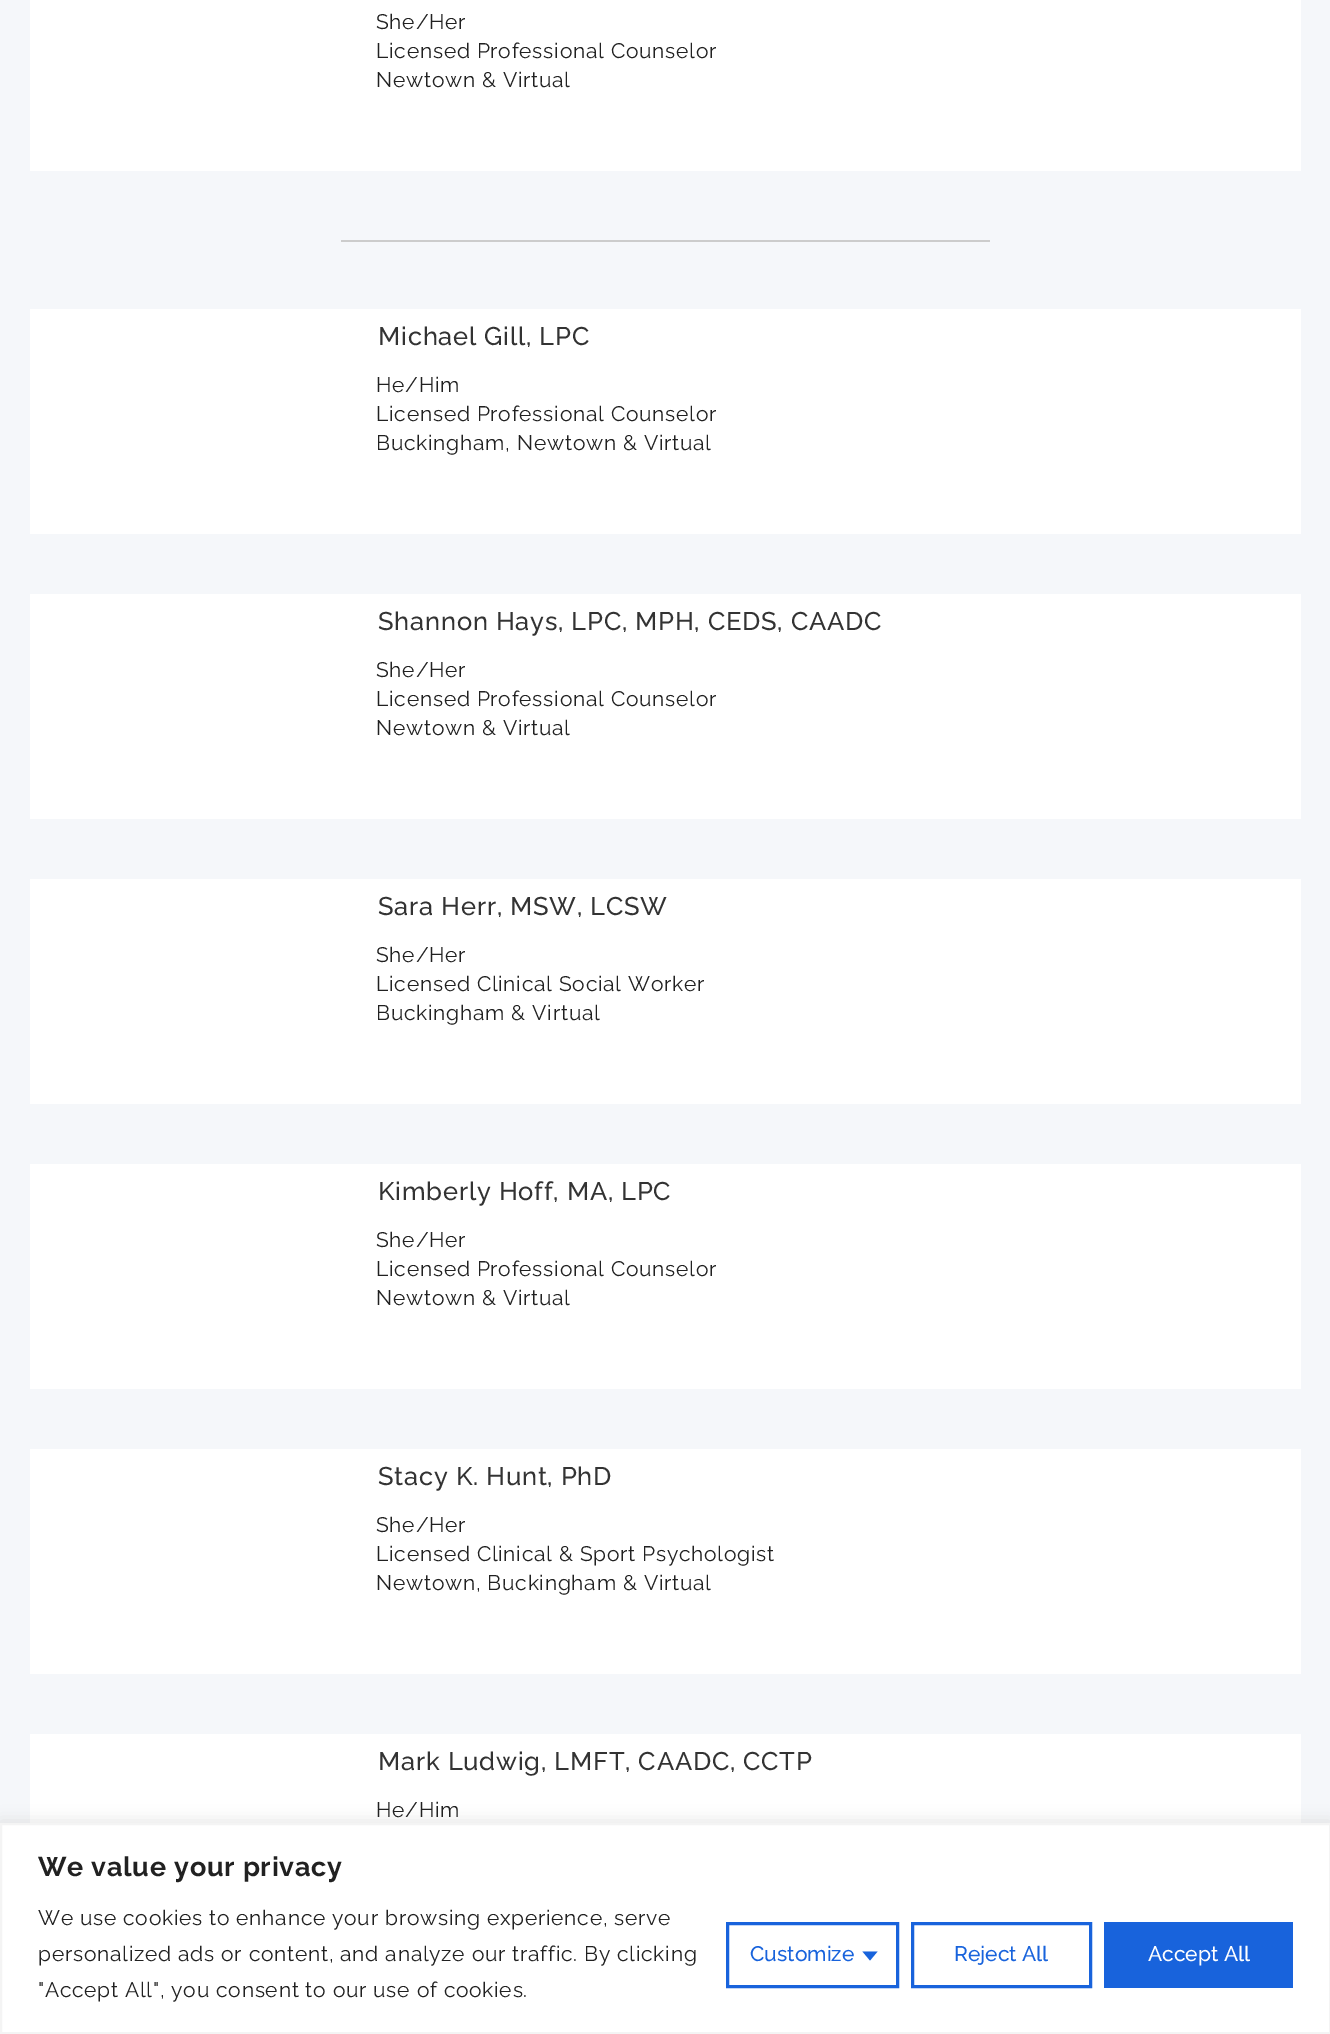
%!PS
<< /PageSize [1330 2034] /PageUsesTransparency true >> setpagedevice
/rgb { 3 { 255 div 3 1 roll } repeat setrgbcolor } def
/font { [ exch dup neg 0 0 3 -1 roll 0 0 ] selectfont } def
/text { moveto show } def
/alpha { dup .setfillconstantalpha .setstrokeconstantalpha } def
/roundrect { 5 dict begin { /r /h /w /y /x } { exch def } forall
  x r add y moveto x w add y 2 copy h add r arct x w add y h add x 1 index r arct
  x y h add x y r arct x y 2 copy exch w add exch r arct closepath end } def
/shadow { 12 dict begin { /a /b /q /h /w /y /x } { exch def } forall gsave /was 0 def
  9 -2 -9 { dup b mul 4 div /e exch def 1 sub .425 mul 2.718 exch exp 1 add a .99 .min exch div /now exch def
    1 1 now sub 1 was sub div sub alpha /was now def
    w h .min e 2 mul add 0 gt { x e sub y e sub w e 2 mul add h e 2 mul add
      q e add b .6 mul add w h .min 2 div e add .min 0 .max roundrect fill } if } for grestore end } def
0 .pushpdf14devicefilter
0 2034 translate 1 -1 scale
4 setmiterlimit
245 247 250 rgb
0 0 1330 2034 rectfill
255 255 255 rgb
30 0 1271 171 rectfill
204 204 204 rgb
341 240 649 2 rectfill
255 255 255 rgb
30 309 1271 225 rectfill
30 594 1271 225 rectfill
30 879 1271 225 rectfill
30 1164 1271 225 rectfill
30 1449 1271 225 rectfill
30 1734 1271 89 rectfill
172 171 171 rgb
0 1821 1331 212 0 7.5 0.3 shadow
255 255 255 rgb
1 1824 moveto 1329 0 rlineto 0 209 rlineto -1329 0 rlineto closepath gsave fill grestore
244 244 244 rgb
2 setlinewidth
stroke
24 99 220 rgb
3 setlinewidth
727.5 1923.5 170 63 rectstroke
862.5 1951.5 moveto 15 0 rlineto -7.5 9 rlineto closepath fill
912.5 1923.5 178 63 rectstroke
1104 1922 189 66 rectfill
/Raleway-Regular 21 font
33 33 33 rgb
376 29 moveto 0.75 0 (She/Her) ashow
376 58 moveto 0.75 0 (Licensed Professional Counselor) ashow
376 87 moveto 0.75 0 (Newtown & Virtual) ashow
/Raleway-Medium 25.5 font
51 51 51 rgb
378 345 moveto 0.75 0 (Michael Gill, LPC) ashow
/Raleway-Regular 21 font
33 33 33 rgb
376 392 moveto 0.75 0 (He/Him) ashow
376 421 moveto 0.75 0 (Licensed Professional Counselor) ashow
376 450 moveto 0.75 0 (Buckingham, Newtown & Virtual) ashow
/Raleway-Medium 25.5 font
51 51 51 rgb
378 630 moveto 0.75 0 (Shannon Hays, LPC, MPH, CEDS, CAADC) ashow
/Raleway-Regular 21 font
33 33 33 rgb
376 677 moveto 0.75 0 (She/Her) ashow
376 706 moveto 0.75 0 (Licensed Professional Counselor) ashow
376 735 moveto 0.75 0 (Newtown & Virtual) ashow
/Raleway-Medium 25.5 font
51 51 51 rgb
378 915 moveto 0.75 0 (Sara Herr, MSW, LCSW) ashow
/Raleway-Regular 21 font
33 33 33 rgb
376 962 moveto 0.75 0 (She/Her) ashow
376 991 moveto 0.75 0 (Licensed Clinical Social Worker) ashow
376 1020 moveto 0.75 0 (Buckingham & Virtual) ashow
/Raleway-Medium 25.5 font
51 51 51 rgb
378 1200 moveto 0.75 0 (Kimberly Hoff, MA, LPC) ashow
/Raleway-Regular 21 font
33 33 33 rgb
376 1247 moveto 0.75 0 (She/Her) ashow
376 1276 moveto 0.75 0 (Licensed Professional Counselor) ashow
376 1305 moveto 0.75 0 (Newtown & Virtual) ashow
/Raleway-Medium 25.5 font
51 51 51 rgb
378 1485 moveto 0.75 0 (Stacy K. Hunt, PhD) ashow
/Raleway-Regular 21 font
33 33 33 rgb
376 1532 moveto 0.75 0 (She/Her) ashow
376 1561 moveto 0.75 0 (Licensed Clinical & Sport Psychologist) ashow
376 1590 moveto 0.75 0 (Newtown, Buckingham & Virtual) ashow
/Raleway-Medium 25.5 font
51 51 51 rgb
378 1770 moveto 0.75 0 (Mark Ludwig, LMFT, CAADC, CCTP) ashow
/Raleway-Regular 21 font
33 33 33 rgb
376 1817 moveto 0.75 0 (He/Him) ashow
/Raleway-Bold 27 font
38 1876 moveto 0.75 0 (We value your privacy) ashow
/Raleway-Regular 21 font
38 1925 moveto 0.75 0 (We use cookies to enhance your browsing experience, serve) ashow
38 1961 moveto 0.75 0 (personalized ads or content, and analyze our traffic. By clicking) ashow
38 1997 moveto 0.75 0 ("Accept All", you consent to our use of cookies.) ashow
/Raleway-Medium 21 font
24 99 220 rgb
(Customize) 750 1961 text
(Reject All) 954 1961 text
255 255 255 rgb
(Accept All) 1148 1961 text
.poppdf14devicefilter showpage
